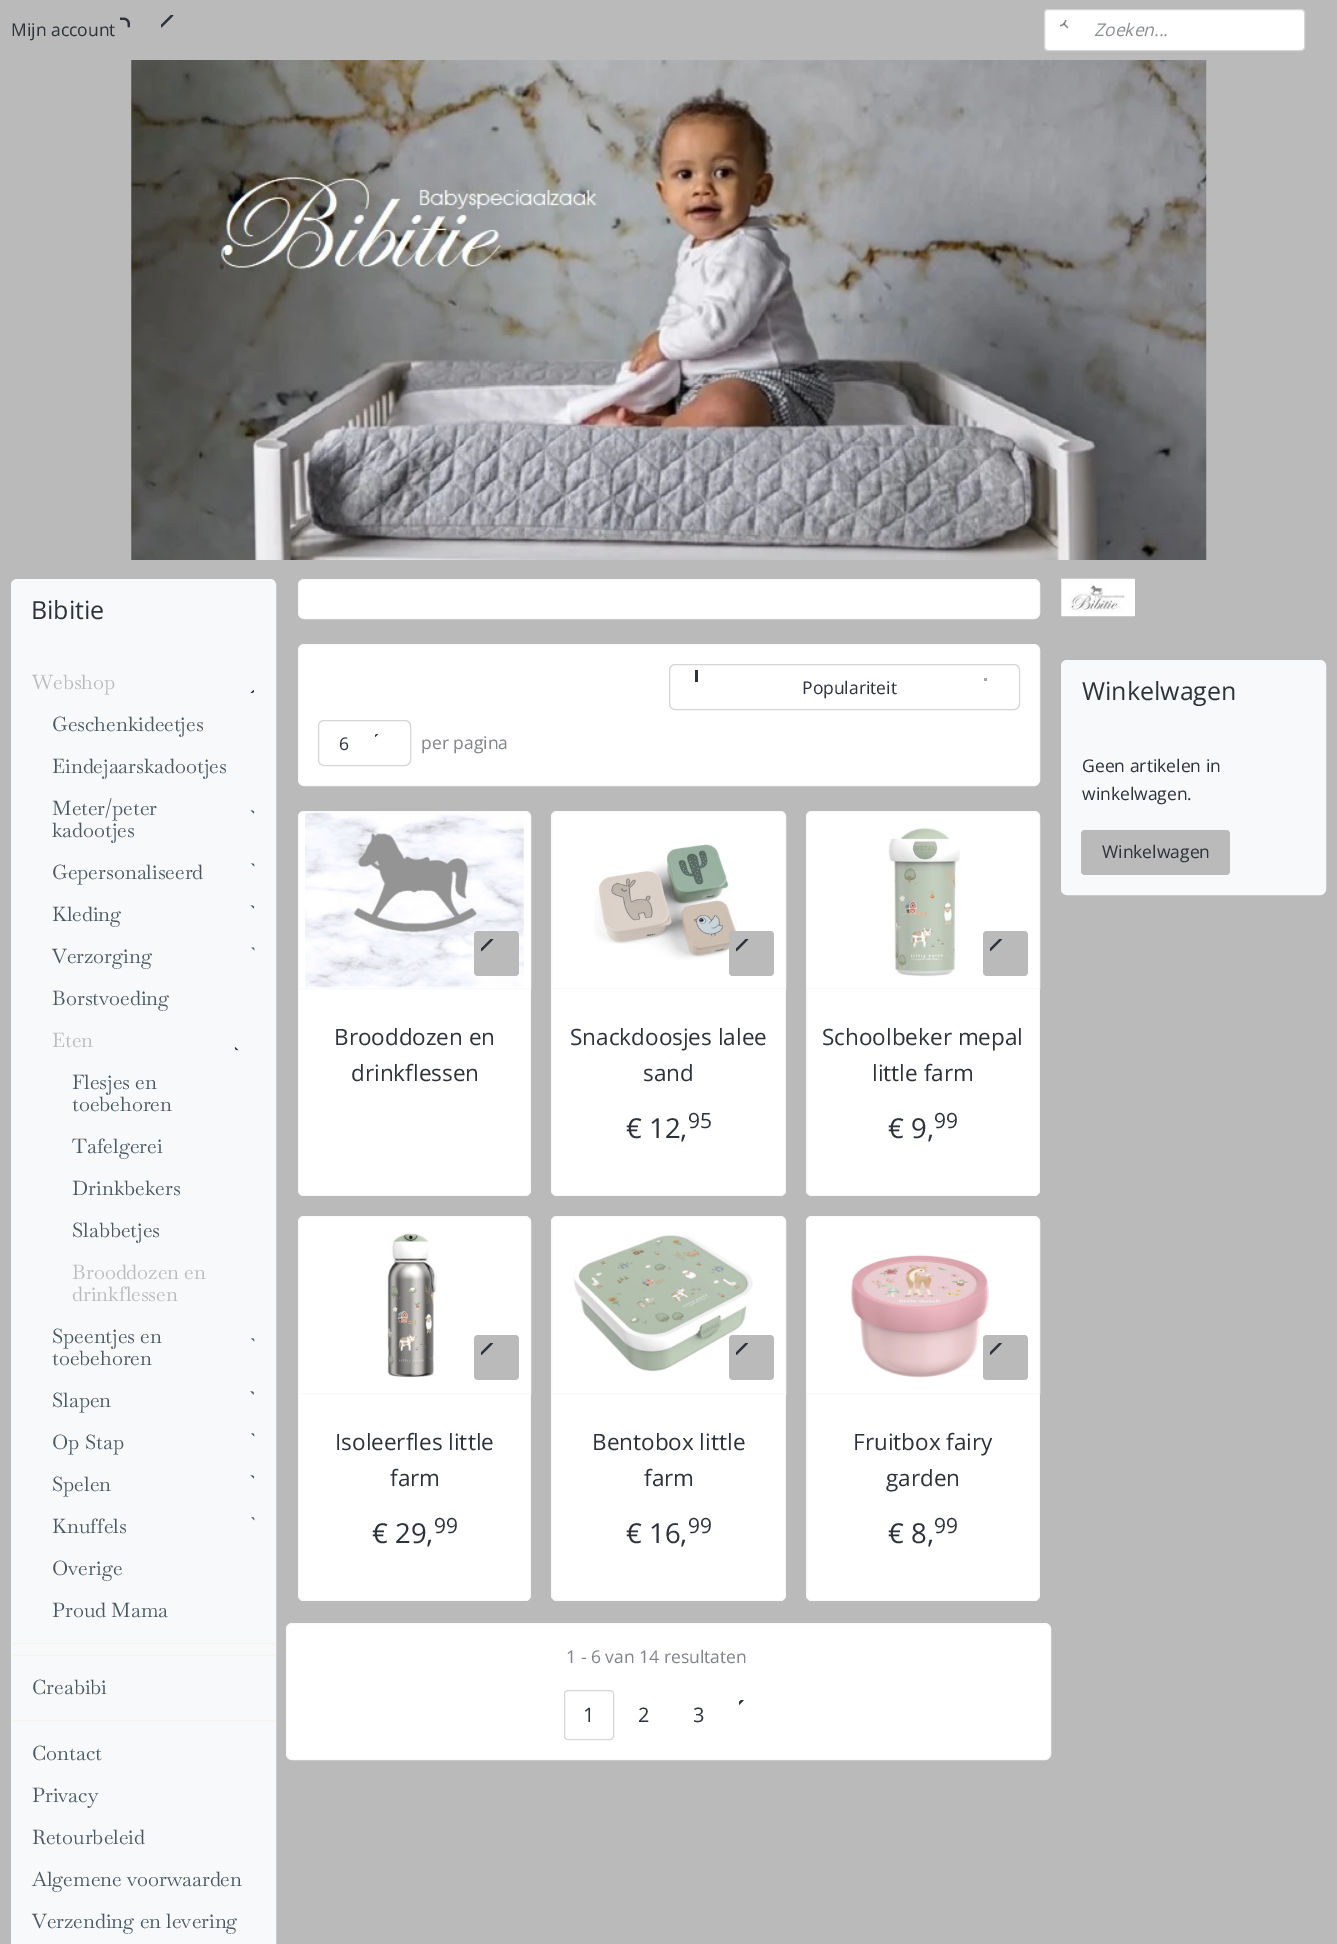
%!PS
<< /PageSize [1337 1944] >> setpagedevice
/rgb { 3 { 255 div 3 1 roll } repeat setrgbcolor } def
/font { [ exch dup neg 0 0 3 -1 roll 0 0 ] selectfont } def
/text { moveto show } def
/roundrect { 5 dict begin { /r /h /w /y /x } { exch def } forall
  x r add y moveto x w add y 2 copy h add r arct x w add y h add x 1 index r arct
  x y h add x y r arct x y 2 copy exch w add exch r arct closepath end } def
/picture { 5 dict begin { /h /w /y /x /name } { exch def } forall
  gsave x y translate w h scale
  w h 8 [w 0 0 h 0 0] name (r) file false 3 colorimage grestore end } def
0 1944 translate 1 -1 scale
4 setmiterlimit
186 186 186 rgb
0 0 1337 1944 rectfill
(img_01.rgb) 161 15 13 13 picture
(img_02.rgb) 120 17 10 11 picture
255 255 255 rgb
1044.5 9.5 260 41 3.5 roundrect gsave fill grestore
211 213 217 rgb
stroke
(img_03.rgb) 1060 20 9 9 picture
(img_04.rgb) 131 60 1076 500 picture
248 249 251 rgb
11.5 579.5 264 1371 5.5 roundrect gsave fill grestore
stroke
(img_05.rgb) 250 690 4 3 picture
(img_06.rgb) 250 810 5 4 picture
(img_07.rgb) 250 863 5 4 picture
(img_08.rgb) 250 905 5 4 picture
(img_09.rgb) 251 947 4 4 picture
(img_10.rgb) 234 1047 5 4 picture
(img_11.rgb) 250 1338 5 4 picture
(img_12.rgb) 250 1391 4 4 picture
(img_13.rgb) 250 1433 5 4 picture
(img_14.rgb) 250 1475 5 4 picture
(img_15.rgb) 251 1517 4 4 picture
247 243 233 rgb
13 1643 262 1 rectfill
13 1655 262 1 rectfill
13 1720 262 1 rectfill
255 255 255 rgb
298.5 579.5 741 39 5.5 roundrect gsave fill grestore
248 249 251 rgb
stroke
255 255 255 rgb
298.5 644.5 741 141 5.5 roundrect gsave fill grestore
248 249 251 rgb
stroke
214 214 214 rgb
669.5 664.5 350 45 5.5 roundrect stroke
45 49 57 rgb
695 670 3 12 rectfill
165 166 170 rgb
984 678 3 3 rectfill
214 214 214 rgb
318.5 720.5 92 45 5.5 roundrect stroke
(img_16.rgb) 375 734 4 3 picture
255 255 255 rgb
298 811 233 385 6 roundrect fill
248 249 251 rgb
304 811.5 moveto 221 0 rlineto 3 0 5.5 2.5 5.5 5.5 rcurveto 0 171.5 rlineto -232 0 rlineto 0 -171.5 rlineto 0 -3 2.5 -5.5 5.5 -5.5 rcurveto closepath stroke
(img_17.rgb) 305 812 219 176 picture
186 186 186 rgb
474 931 45 45 4 roundrect fill
(img_18.rgb) 481 939 13 13 picture
248 249 251 rgb
298 989 moveto 233 0 rlineto 0 201 rlineto 0 3 -3 6 -6 6 rcurveto -221 0 rlineto -4 0 -6 -3 -6 -6 rcurveto closepath 299 989 moveto 231 0 rlineto 0 201 rlineto 0 3 -2 5 -5 5 rcurveto -221 0 rlineto -3 0 -5 -2 -5 -5 rcurveto closepath eofill
255 255 255 rgb
551 811 235 385 6 roundrect fill
248 249 251 rgb
557 811.5 moveto 223 0 rlineto 3 0 5.5 2.5 5.5 5.5 rcurveto 0 171.5 rlineto -234 0 rlineto 0 -171.5 rlineto 0 -3 2.5 -5.5 5.5 -5.5 rcurveto closepath stroke
(img_19.rgb) 594 844 145 116 picture
186 186 186 rgb
729 931 45 45 4 roundrect fill
(img_18.rgb) 736 939 13 13 picture
248 249 251 rgb
551 989 moveto 235 0 rlineto 0 201 rlineto 0 3 -3 6 -6 6 rcurveto -222 0 rlineto -4 0 -7 -3 -7 -6 rcurveto closepath 552 989 moveto 233 0 rlineto 0 201 rlineto 0 3 -2 5 -5 5 rcurveto -222 0 rlineto -3 0 -6 -2 -6 -5 rcurveto closepath eofill
255 255 255 rgb
806 811 234 385 6 roundrect fill
248 249 251 rgb
812 811.5 moveto 222 0 rlineto 3 0 5.5 2.5 5.5 5.5 rcurveto 0 171.5 rlineto -233 0 rlineto 0 -171.5 rlineto 0 -3 2.5 -5.5 5.5 -5.5 rcurveto closepath stroke
(img_20.rgb) 888 827 72 150 picture
186 186 186 rgb
983 931 45 45 4 roundrect fill
(img_21.rgb) 990 939 13 13 picture
248 249 251 rgb
806 989 moveto 234 0 rlineto 0 201 rlineto 0 3 -3 6 -6 6 rcurveto -222 0 rlineto -3 0 -6 -3 -6 -6 rcurveto closepath 808 989 moveto 231 0 rlineto 0 201 rlineto 0 3 -2 5 -5 5 rcurveto -222 0 rlineto -2 0 -4 -2 -4 -5 rcurveto closepath eofill
255 255 255 rgb
298 1216 233 385 6 roundrect fill
248 249 251 rgb
304 1216.5 moveto 221 0 rlineto 3 0 5.5 2.5 5.5 5.5 rcurveto 0 171.5 rlineto -232 0 rlineto 0 -171.5 rlineto 0 -3 2.5 -5.5 5.5 -5.5 rcurveto closepath stroke
(img_22.rgb) 386 1232 51 146 picture
186 186 186 rgb
474 1335 45 45 4 roundrect fill
(img_23.rgb) 481 1343 13 12 picture
248 249 251 rgb
298 1394 moveto 233 0 rlineto 0 201 rlineto 0 3 -3 6 -6 6 rcurveto -221 0 rlineto -4 0 -6 -3 -6 -6 rcurveto closepath 299 1394 moveto 231 0 rlineto 0 201 rlineto 0 3 -2 5 -5 5 rcurveto -221 0 rlineto -3 0 -5 -2 -5 -5 rcurveto closepath eofill
255 255 255 rgb
551 1216 235 385 6 roundrect fill
248 249 251 rgb
557 1216.5 moveto 223 0 rlineto 3 0 5.5 2.5 5.5 5.5 rcurveto 0 171.5 rlineto -234 0 rlineto 0 -171.5 rlineto 0 -3 2.5 -5.5 5.5 -5.5 rcurveto closepath stroke
(img_24.rgb) 573 1234 180 138 picture
186 186 186 rgb
729 1335 45 45 4 roundrect fill
(img_23.rgb) 736 1343 13 12 picture
248 249 251 rgb
551 1394 moveto 235 0 rlineto 0 201 rlineto 0 3 -3 6 -6 6 rcurveto -222 0 rlineto -4 0 -7 -3 -7 -6 rcurveto closepath 552 1394 moveto 233 0 rlineto 0 201 rlineto 0 3 -2 5 -5 5 rcurveto -222 0 rlineto -3 0 -6 -2 -6 -5 rcurveto closepath eofill
255 255 255 rgb
806 1216 234 385 6 roundrect fill
248 249 251 rgb
812 1216.5 moveto 222 0 rlineto 3 0 5.5 2.5 5.5 5.5 rcurveto 0 171.5 rlineto -233 0 rlineto 0 -171.5 rlineto 0 -3 2.5 -5.5 5.5 -5.5 rcurveto closepath stroke
(img_25.rgb) 850 1255 139 123 picture
186 186 186 rgb
983 1335 45 45 4 roundrect fill
(img_26.rgb) 990 1343 12 12 picture
248 249 251 rgb
806 1394 moveto 234 0 rlineto 0 201 rlineto 0 3 -3 6 -6 6 rcurveto -222 0 rlineto -3 0 -6 -3 -6 -6 rcurveto closepath 808 1394 moveto 231 0 rlineto 0 201 rlineto 0 3 -2 5 -5 5 rcurveto -222 0 rlineto -2 0 -4 -2 -4 -5 rcurveto closepath eofill
255 255 255 rgb
286.5 1623.5 764 136 5.5 roundrect gsave fill grestore
248 249 251 rgb
stroke
(img_27.rgb) 739 1700 5 6 picture
214 214 214 rgb
564.5 1690.5 49 49 3.5 roundrect stroke
(img_28.rgb) 1061 578 74 39 picture
248 249 251 rgb
1061.5 660.5 264 234 5.5 roundrect gsave fill grestore
stroke
186 186 186 rgb
1081 830 149 45 4 roundrect fill
/OpenSans-Regular 17.5 font
45 49 57 rgb
(Mijn account) 11 36 text
/OpenSans-Italic 17.5 font
137 140 145 rgb
(Zoeken...) 1094 36 text
/OpenSans-Regular 25 font
45 49 57 rgb
(Bibitie) 31 619 text
/Baskervville-Regular 20 font
186 186 186 rgb
(Webshop) 32 689 text
72 87 97 rgb
(Geschenkideetjes) 52 731 text
(Eindejaarskadootjes) 52 773 text
(Meter/peter) 52 815 text
(kadootjes) 52 837 text
(Gepersonaliseerd) 52 879 text
(Kleding) 52 921 text
(Verzorging) 52 963 text
(Borstvoeding) 52 1005 text
186 186 186 rgb
(Eten) 52 1047 text
72 87 97 rgb
(Flesjes en) 72 1089 text
(toebehoren) 72 1111 text
(Tafelgerei) 72 1153 text
(Drinkbekers) 72 1195 text
(Slabbetjes) 72 1237 text
186 186 186 rgb
(Brooddozen en) 72 1279 text
(drinkflessen) 72 1301 text
72 87 97 rgb
(Speentjes en) 52 1343 text
(toebehoren) 52 1365 text
(Slapen) 52 1407 text
(Op Stap) 52 1449 text
(Spelen) 52 1491 text
(Knuffels) 52 1533 text
(Overige) 52 1575 text
(Proud Mama) 52 1617 text
(Creabibi) 32 1694 text
(Contact) 32 1760 text
(Privacy) 32 1802 text
(Retourbeleid) 32 1844 text
(Algemene voorwaarden) 32 1886 text
(Verzending en levering) 32 1928 text
/OpenSans-Regular 17.5 font
45 49 57 rgb
(Populariteit) 802 694 text
(6) 339 750 text
129 131 136 rgb
(per pagina) 421 749 text
/OpenSans-Regular 22.5 font
45 49 57 rgb
(Brooddozen en) 334 1045 text
(drinkflessen) 351 1081 text
(Snackdoosjes lalee) 570 1045 text
(sand) 643 1081 text
/OpenSans-Regular 27.5 font
(€ 12,) 626 1138 text
/OpenSans-Regular 21 font
(95) 688 1128 text
/OpenSans-Regular 22.5 font
(Schoolbeker mepal) 822 1045 text
(little farm) 872 1081 text
/OpenSans-Regular 27.5 font
(€ 9,) 888 1138 text
/OpenSans-Regular 21 font
(99) 934 1128 text
/OpenSans-Regular 22.5 font
(Isoleerfles little) 335 1450 text
(farm) 390 1486 text
/OpenSans-Regular 27.5 font
(€ 29,) 372 1543 text
/OpenSans-Regular 21 font
(99) 434 1533 text
/OpenSans-Regular 22.5 font
(Bentobox little) 592 1450 text
(farm) 644 1486 text
/OpenSans-Regular 27.5 font
(€ 16,) 626 1543 text
/OpenSans-Regular 21 font
(99) 688 1533 text
/OpenSans-Regular 22.5 font
(Fruitbox fairy) 853 1450 text
(garden) 886 1486 text
/OpenSans-Regular 27.5 font
(€ 8,) 888 1543 text
/OpenSans-Regular 21 font
(99) 934 1533 text
/OpenSans-Regular 17.5 font
129 131 136 rgb
(1 - 6 van 14 resultaten) 566 1663 text
/OpenSans-Regular 20 font
45 49 57 rgb
(1) 583 1722 text
(2) 638 1722 text
(3) 693 1722 text
/OpenSans-Regular 25 font
(Winkelwagen) 1082 700 text
/OpenSans-Regular 17.5 font
(Geen artikelen in) 1082 772 text
(winkelwagen.) 1082 800 text
(Winkelwagen) 1102 858 text
showpage
